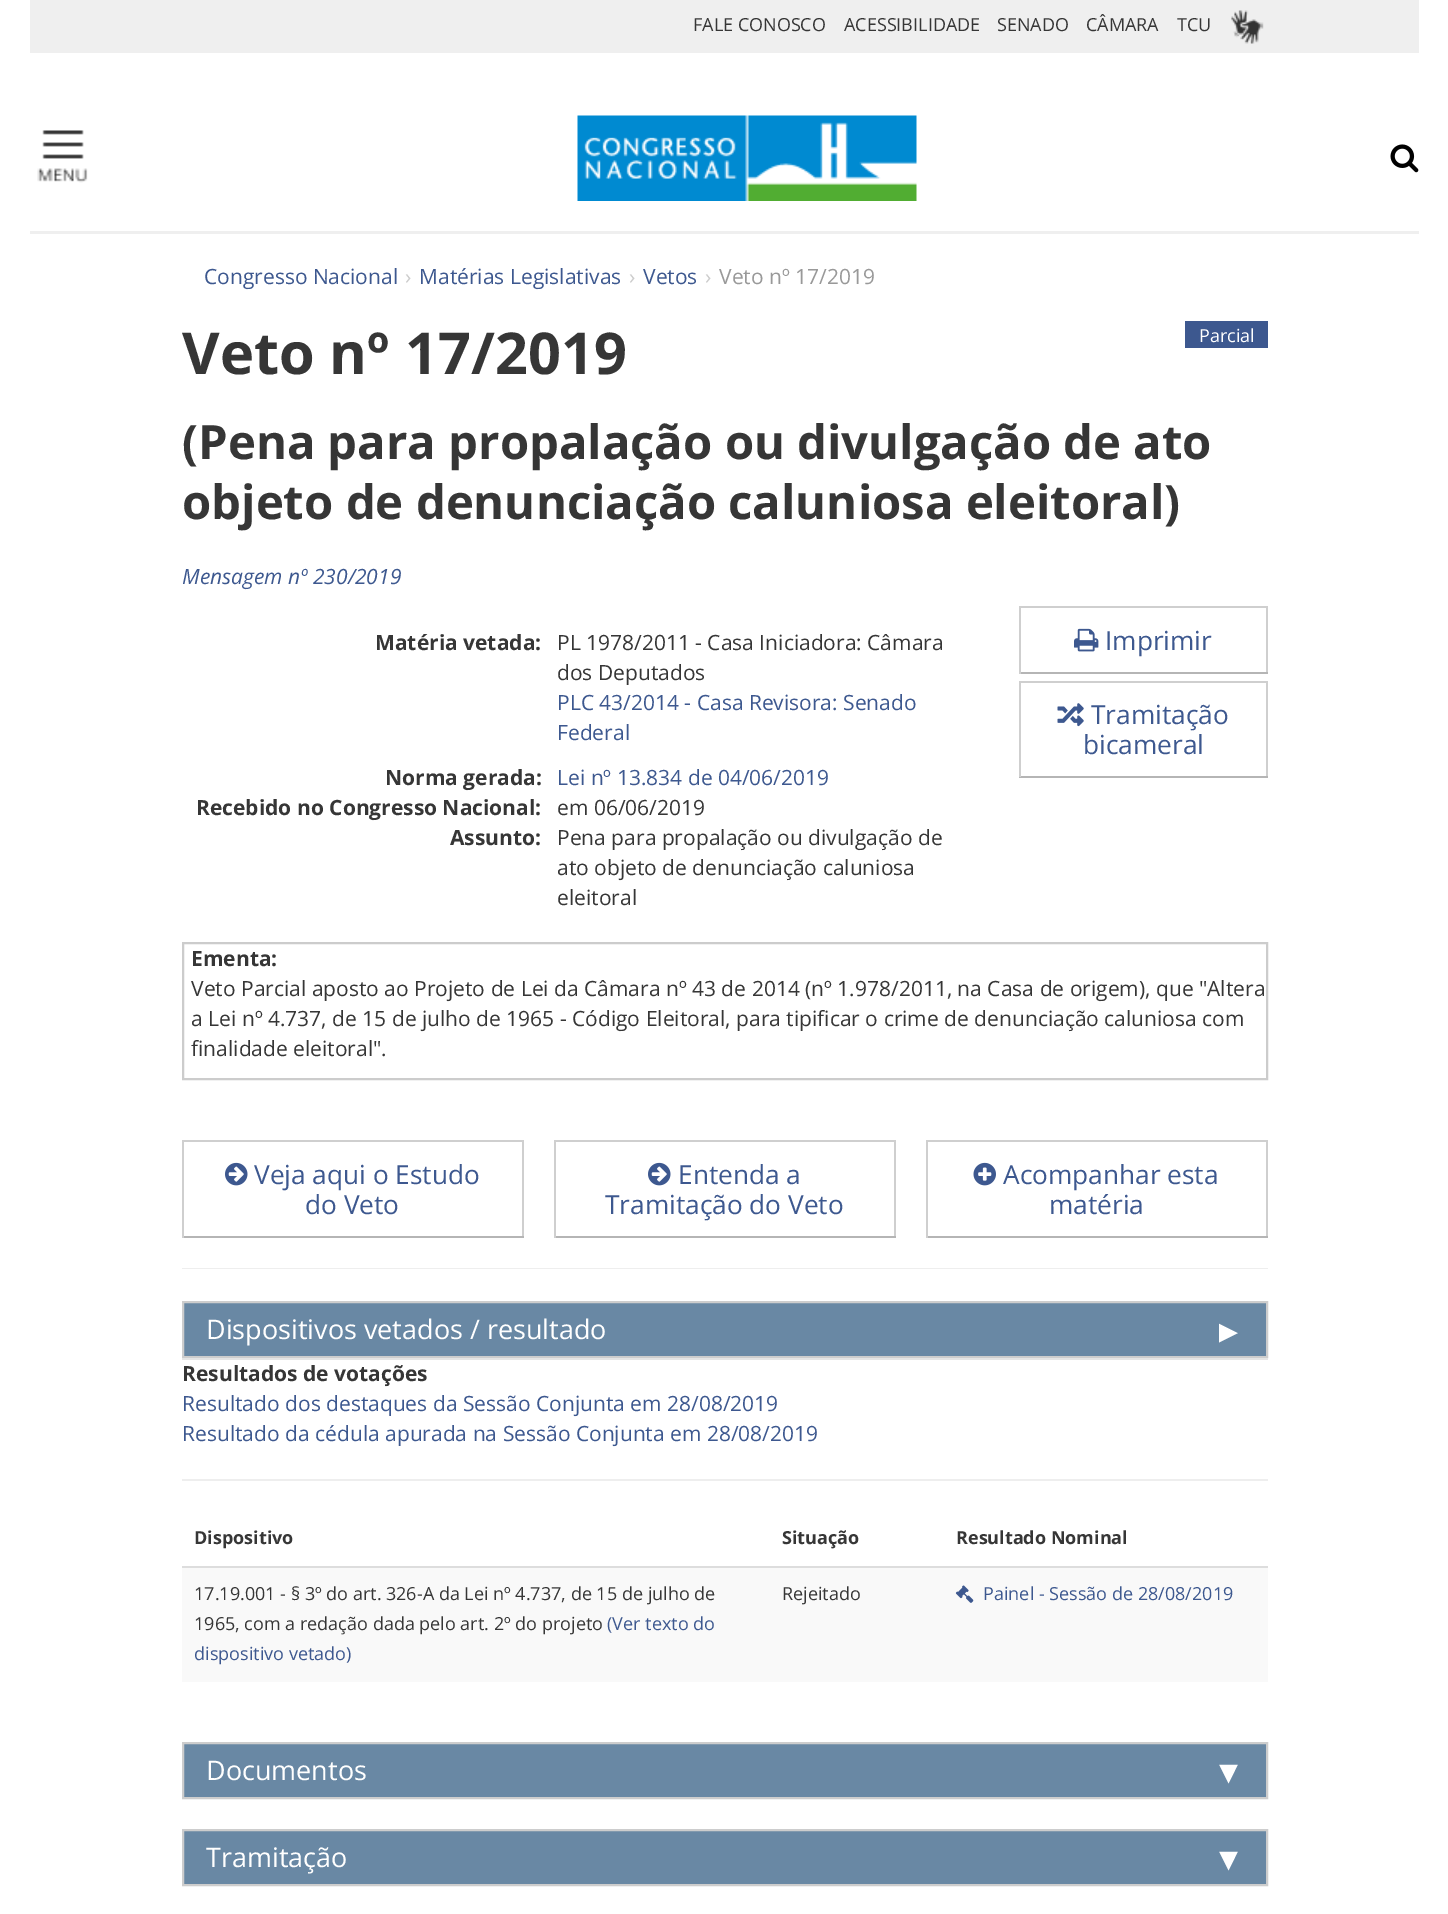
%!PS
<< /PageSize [1448 1914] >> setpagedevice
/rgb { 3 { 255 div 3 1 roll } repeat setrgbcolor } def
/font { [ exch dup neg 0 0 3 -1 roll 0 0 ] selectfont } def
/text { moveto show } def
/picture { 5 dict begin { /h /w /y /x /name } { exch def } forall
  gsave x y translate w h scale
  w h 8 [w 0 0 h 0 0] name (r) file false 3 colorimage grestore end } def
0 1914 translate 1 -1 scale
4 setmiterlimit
255 255 255 rgb
0 0 1448 1914 rectfill
239 239 239 rgb
30 0 1389 53 rectfill
(img_01.rgb) 1231 10 33 34 picture
30 231 1389 3 rectfill
(img_02.rgb) 37 130 51 53 picture
(img_03.rgb) 577 115 340 86 picture
(img_04.rgb) 1390 144 29 29 picture
61 88 143 rgb
1185 321 83 27 rectfill
207 207 207 rgb
1019 606 249 2 rectfill
1266 606 2 68 rectfill
181 181 181 rgb
1019 672 249 2 rectfill
207 207 207 rgb
1019 606 2 68 rectfill
(img_05.rgb) 1074 628 25 24 picture
1019 681 249 2 rectfill
1266 681 2 96 rectfill
181 181 181 rgb
1019 776 249 2 rectfill
207 207 207 rgb
1019 681 2 96 rectfill
(img_06.rgb) 1057 703 27 24 picture
204 204 204 rgb
2 setlinewidth
183 943 1084 136 rectstroke
207 207 207 rgb
182 1140 342 2 rectfill
522 1140 2 98 rectfill
181 181 181 rgb
182 1236 342 2 rectfill
207 207 207 rgb
182 1140 2 98 rectfill
(img_07.rgb) 225 1162 23 24 picture
554 1140 342 2 rectfill
894 1140 2 98 rectfill
181 181 181 rgb
554 1236 342 2 rectfill
207 207 207 rgb
554 1140 2 98 rectfill
(img_07.rgb) 648 1162 23 24 picture
926 1140 342 2 rectfill
1266 1140 2 98 rectfill
181 181 181 rgb
926 1236 342 2 rectfill
207 207 207 rgb
926 1140 2 98 rectfill
(img_08.rgb) 973 1162 23 24 picture
238 238 238 rgb
182 1268 1086 1 rectfill
105 136 164 rgb
183 1302 moveto 1084 0 rlineto 0 55 rlineto -1084 0 rlineto closepath gsave fill grestore
205 205 205 rgb
stroke
229 229 229 rgb
182 1358 1086 2 rectfill
238 238 238 rgb
182 1479 1086 2 rectfill
249 249 249 rgb
182 1568 1086 114 rectfill
221 221 221 rgb
182 1566 1086 2 rectfill
(img_09.rgb) 955 1585 19 18 picture
105 136 164 rgb
183 1743 moveto 1084 0 rlineto 0 55 rlineto -1084 0 rlineto closepath gsave fill grestore
205 205 205 rgb
stroke
105 136 164 rgb
183 1830 moveto 1084 0 rlineto 0 55 rlineto -1084 0 rlineto closepath gsave fill grestore
205 205 205 rgb
stroke
/OpenSans-Regular 18 font
54 54 54 rgb
(FALE CONOSCO) 693 31 text
(ACESSIBILIDADE) 844 31 text
(SENADO) 997 31 text
(CÂMARA) 1086 31 text
(TCU) 1177 31 text
/OpenSans-Regular 21 font
61 88 143 rgb
(Congresso Nacional) 204 284 text
204 204 204 rgb
(›) 405 284 text
61 88 143 rgb
(Matérias Legislativas) 419 284 text
204 204 204 rgb
(›) 629 284 text
61 88 143 rgb
(Vetos) 643 284 text
204 204 204 rgb
(›) 705 284 text
153 153 153 rgb
(Veto nº 17/2019) 719 284 text
/OpenSans-Bold 57.75 font
54 54 54 rgb
(Veto nº 17/2019) 182 374 text
/OpenSans-Regular 18 font
255 255 255 rgb
(Parcial) 1199 342 text
/OpenSans-Bold 47.25 font
54 54 54 rgb
(\(Pena para propalação ou divulgação de ato) 182 459 text
(objeto de denunciação caluniosa eleitoral\)) 182 519 text
/OpenSans-Italic 21 font
61 88 143 rgb
(Mensagem nº 230/2019) 182 584 text
/OpenSans-Bold 21 font
54 54 54 rgb
(Matéria vetada:) 375 650 text
/OpenSans-Regular 21 font
(PL 1978/2011 - Casa Iniciadora: Câmara) 557 650 text
(dos Deputados) 557 680 text
61 88 143 rgb
(PLC 43/2014 - Casa Revisora: Senado) 557 710 text
(Federal) 557 740 text
/OpenSans-Bold 21 font
54 54 54 rgb
(Norma gerada:) 385 785 text
/OpenSans-Regular 21 font
61 88 143 rgb
(Lei nº 13.834 de 04/06/2019) 557 785 text
/OpenSans-Bold 21 font
54 54 54 rgb
(Recebido no Congresso Nacional:) 196 815 text
/OpenSans-Regular 21 font
(em 06/06/2019) 557 815 text
/OpenSans-Bold 21 font
(Assunto:) 450 845 text
/OpenSans-Regular 21 font
(Pena para propalação ou divulgação de) 557 845 text
(ato objeto de denunciação caluniosa) 557 875 text
(eleitoral) 557 905 text
/OpenSans-Regular 26.25 font
61 88 143 rgb
(Imprimir) 1105 650 text
(Tramitação) 1091 724 text
(bicameral) 1083 754 text
/OpenSans-Bold 21 font
54 54 54 rgb
(Ementa:) 191 966 text
/OpenSans-Regular 21 font
(Veto Parcial aposto ao Projeto de Lei da Câmara nº 43 de 2014 \(nº 1.978/2011, na Casa de origem\), que "Altera) 191 996 text
(a Lei nº 4.737, de 15 de julho de 1965 - Código Eleitoral, para tipificar o crime de denunciação caluniosa com) 191 1026 text
(finalidade eleitoral".) 191 1056 text
/OpenSans-Regular 26.25 font
61 88 143 rgb
(Veja aqui o Estudo) 254 1184 text
(do Veto) 305 1214 text
(Entenda a) 678 1184 text
(Tramitação do Veto) 605 1214 text
(Acompanhar esta) 1003 1184 text
(matéria) 1049 1214 text
/OpenSans-Regular 27 font
255 255 255 rgb
(Dispositivos vetados / resultado) 206 1339 text
/DejaVuSans-Regular 38 font
(▸) 1219 1343 text
/OpenSans-Bold 21 font
54 54 54 rgb
(Resultados de votações) 182 1381 text
/OpenSans-Regular 21 font
61 88 143 rgb
(Resultado dos destaques da Sessão Conjunta em 28/08/2019) 182 1411 text
(Resultado da cédula apurada na Sessão Conjunta em 28/08/2019) 182 1441 text
/OpenSans-Bold 18 font
54 54 54 rgb
(Dispositivo) 194 1544 text
(Situação) 782 1544 text
(Resultado Nominal) 956 1544 text
/OpenSans-Regular 18 font
(17.19.001 - § 3º do art. 326-A da Lei nº 4.737, de 15 de julho de) 194 1600 text
(1965, com a redação dada pelo art. 2º do projeto) 194 1630 text
61 88 143 rgb
(\(Ver texto do) 607 1630 text
(dispositivo vetado\)) 194 1660 text
54 54 54 rgb
(Rejeitado) 782 1600 text
61 88 143 rgb
(Painel - Sessão de 28/08/2019) 983 1600 text
/OpenSans-Regular 27 font
255 255 255 rgb
(Documentos) 206 1780 text
/DejaVuSans-Regular 38 font
(▾) 1219 1784 text
/OpenSans-Regular 27 font
(Tramitação) 206 1867 text
/DejaVuSans-Regular 38 font
(▾) 1219 1871 text
showpage
